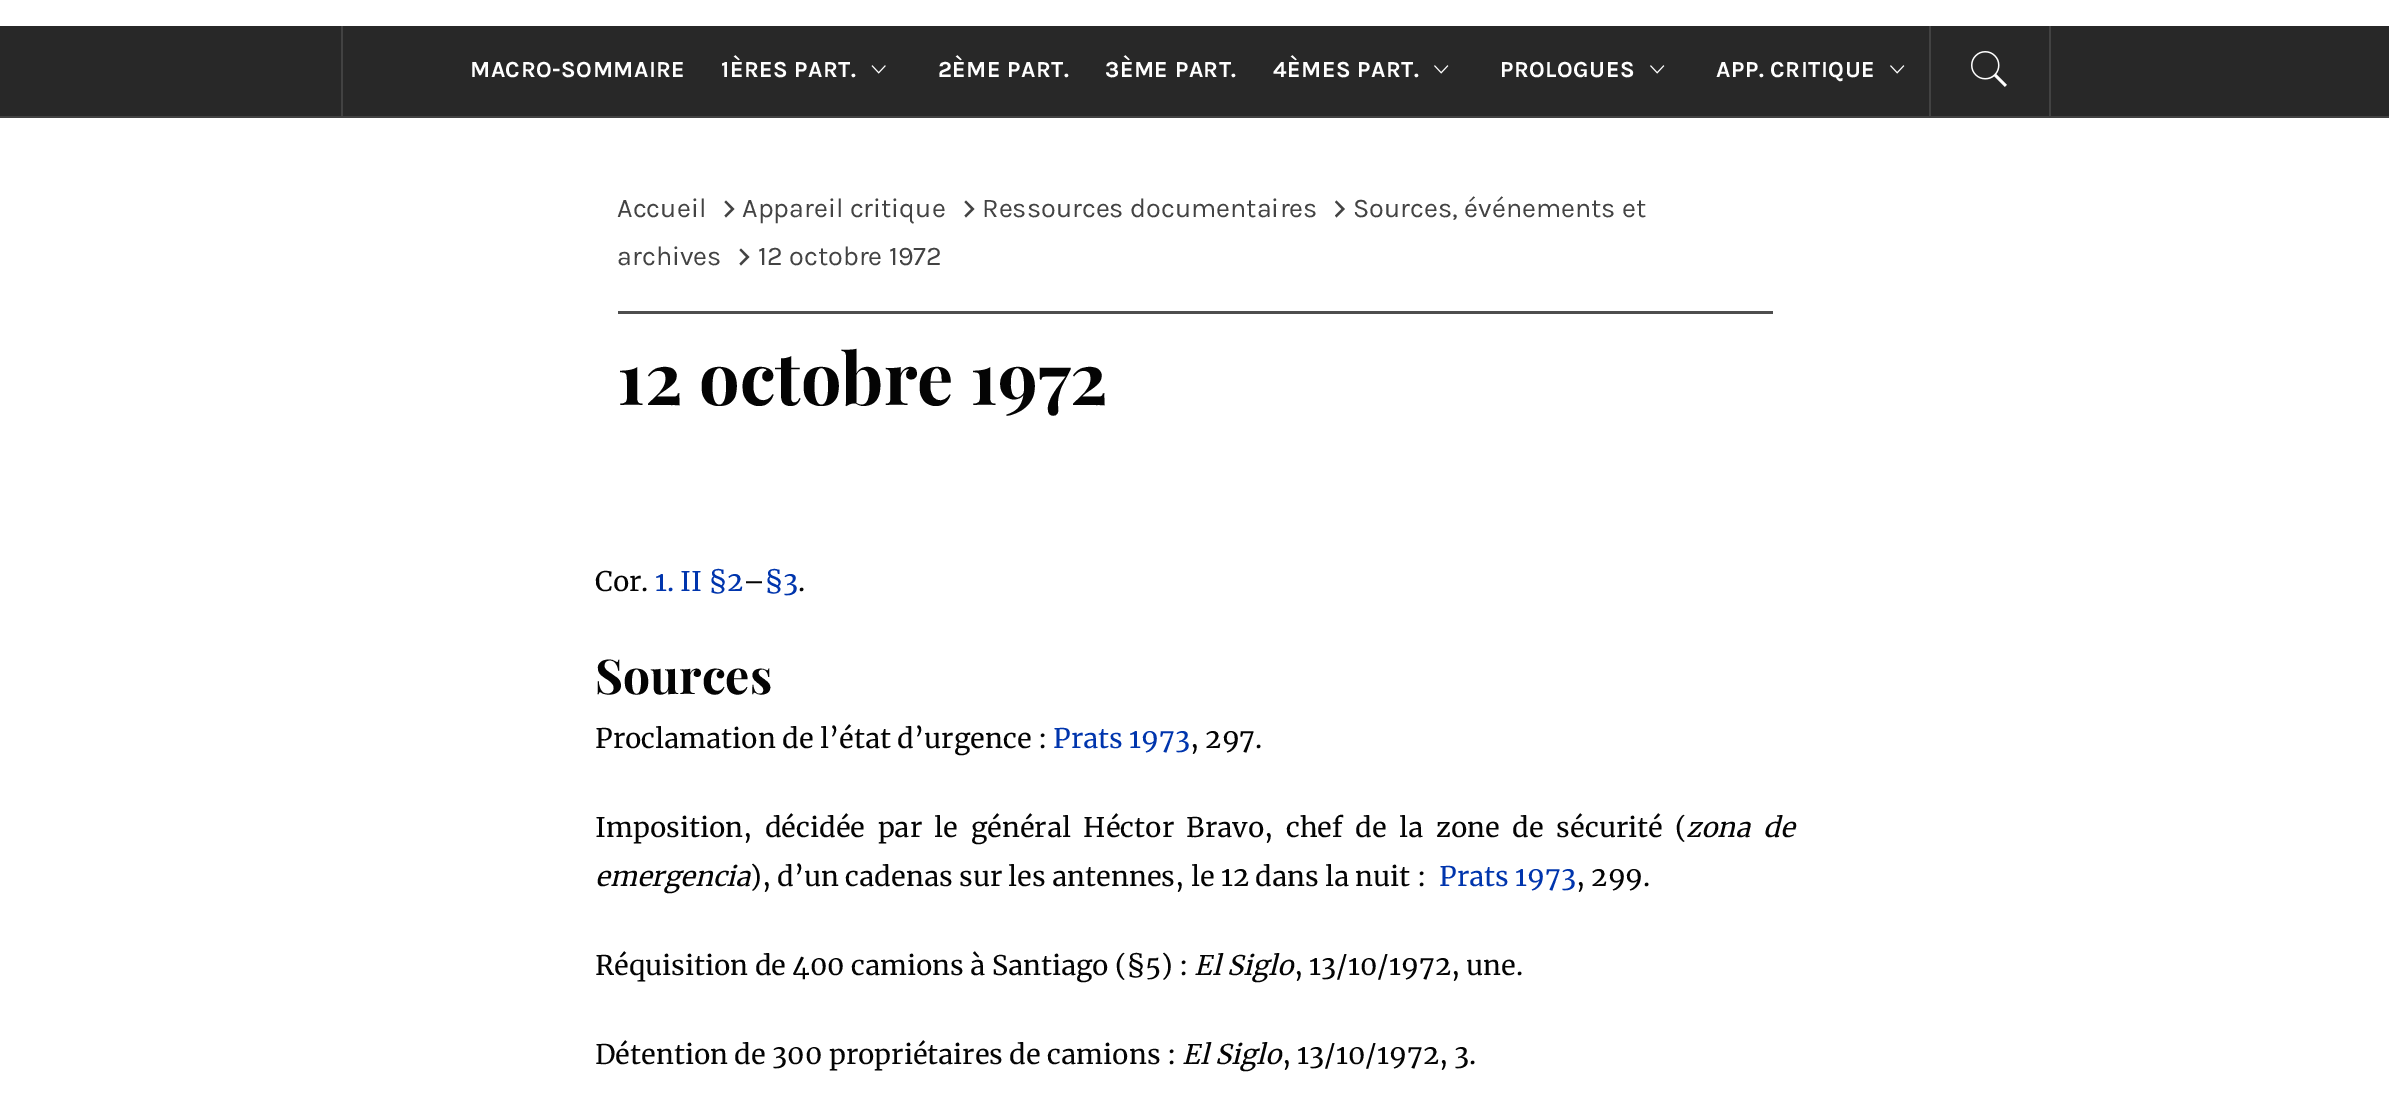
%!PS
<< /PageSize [2389 1113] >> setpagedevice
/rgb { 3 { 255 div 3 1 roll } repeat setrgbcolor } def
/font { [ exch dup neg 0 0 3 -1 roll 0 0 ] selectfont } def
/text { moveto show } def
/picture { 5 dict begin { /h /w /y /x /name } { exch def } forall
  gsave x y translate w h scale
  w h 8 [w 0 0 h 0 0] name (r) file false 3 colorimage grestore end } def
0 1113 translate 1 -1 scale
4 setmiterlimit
255 255 255 rgb
0 0 2389 1113 rectfill
40 40 40 rgb
0 26 2389 90 rectfill
66 66 66 rgb
0 116 2389 2 rectfill
2049 26 2 90 rectfill
341 26 2 90 rectfill
(img_01.rgb) 871 65 15 9 picture
(img_02.rgb) 1434 65 15 9 picture
(img_02.rgb) 1650 65 15 9 picture
(img_02.rgb) 1890 65 15 9 picture
1929 26 2 90 rectfill
(img_03.rgb) 1971 51 36 36 picture
78 78 78 rgb
618 311 1155 3 rectfill
67 67 67 rgb
1335 202 moveto 1.5 -1.5 rlineto 8.5 8.5 rlineto -8.5 8.5 rlineto -1.5 -2 rlineto 6.5 -6.5 rlineto closepath fill
724.5 202 moveto 1.5 -1.5 rlineto 8.5 8.5 rlineto -8.5 8.5 rlineto -1.5 -2 rlineto 6.5 -6.5 rlineto closepath fill
964.5 202 moveto 1.5 -1.5 rlineto 8.5 8.5 rlineto -8.5 8.5 rlineto -1.5 -2 rlineto 6.5 -6.5 rlineto closepath fill
739.5 250 moveto 1.5 -1.5 rlineto 8.5 8.5 rlineto -8.5 8.5 rlineto -1.5 -2 rlineto 6.5 -6.5 rlineto closepath fill
/Karla-Bold 23 font
255 255 255 rgb
470 77 moveto 0.5 0 (MACRO-SOMMAIRE) ashow
721 77 moveto 0.5 0 (1ÈRES PART.) ashow
938 77 moveto 0.5 0 (2ÈME PART.) ashow
1105 77 moveto 0.5 0 (3ÈME PART.) ashow
1273 77 moveto 0.5 0 (4ÈMES PART.) ashow
1500 77 moveto 0.5 0 (PROLOGUES) ashow
1716 77 moveto 0.5 0 (APP. CRITIQUE) ashow
/Karla-Regular 27 font
67 67 67 rgb
(Sources, événements et) 1353 217 text
(archives) 617 265 text
(Accueil) 617 217 text
(Appareil critique) 742 217 text
(Ressources documentaires) 982 217 text
(12 octobre 1972) 758 265 text
/PlayfairDisplay-Bold 72 font
4 4 4 rgb
(12 octobre 1972) 617 405 text
/Merriweather-Regular 27 font
(Cor.) 595 591 text
0 53 173 rgb
(1. II §2) 655 591 text
4 4 4 rgb
(–) 743 591 text
0 53 173 rgb
(§3) 765 591 text
4 4 4 rgb
(.) 798 591 text
/PlayfairDisplay-Bold 48 font
(Sources) 595 694 text
/Merriweather-Regular 27 font
(Proclamation de l’état d’urgence :) 595 748 text
0 53 173 rgb
(Prats 1973) 1053 748 text
4 4 4 rgb
(, 297.) 1190 748 text
595 837 moveto 6.1 0 32 (Imposition, décidée par le général Héctor Bravo, chef de la zone de sécurité \() widthshow
/Merriweather-Italic 27 font
1686 837 moveto 6.1 0 32 (zona de) widthshow
(emergencia) 595 886 text
/Merriweather-Regular 27 font
(\), d’un cadenas sur les antennes, le 12 dans la nuit :) 750 886 text
0 53 173 rgb
(Prats 1973) 1439 886 text
4 4 4 rgb
(, 299.) 1576 886 text
(Réquisition de 400 camions à Santiago \(§5\) :) 595 975 text
/Merriweather-Italic 27 font
(El Siglo) 1194 975 text
/Merriweather-Regular 27 font
(, 13/10/1972, une.) 1294 975 text
(Détention de 300 propriétaires de camions :) 595 1064 text
/Merriweather-Italic 27 font
(El Siglo) 1182 1064 text
/Merriweather-Regular 27 font
(, 13/10/1972, 3.) 1282 1064 text
showpage
